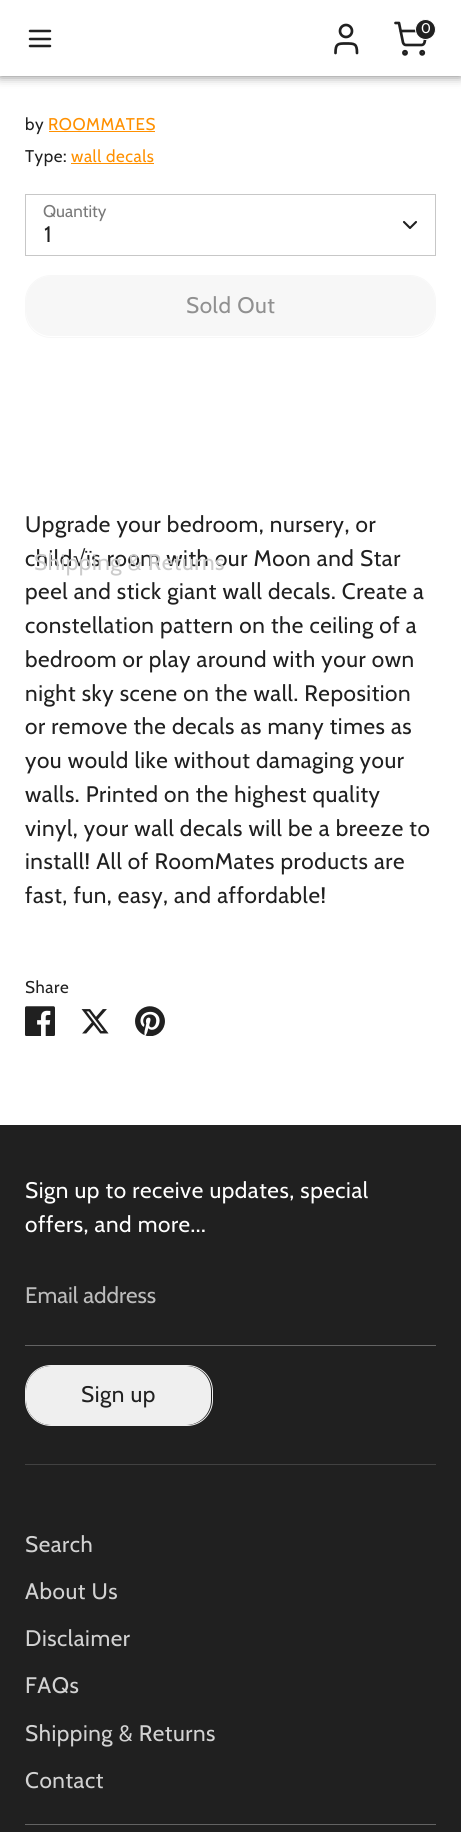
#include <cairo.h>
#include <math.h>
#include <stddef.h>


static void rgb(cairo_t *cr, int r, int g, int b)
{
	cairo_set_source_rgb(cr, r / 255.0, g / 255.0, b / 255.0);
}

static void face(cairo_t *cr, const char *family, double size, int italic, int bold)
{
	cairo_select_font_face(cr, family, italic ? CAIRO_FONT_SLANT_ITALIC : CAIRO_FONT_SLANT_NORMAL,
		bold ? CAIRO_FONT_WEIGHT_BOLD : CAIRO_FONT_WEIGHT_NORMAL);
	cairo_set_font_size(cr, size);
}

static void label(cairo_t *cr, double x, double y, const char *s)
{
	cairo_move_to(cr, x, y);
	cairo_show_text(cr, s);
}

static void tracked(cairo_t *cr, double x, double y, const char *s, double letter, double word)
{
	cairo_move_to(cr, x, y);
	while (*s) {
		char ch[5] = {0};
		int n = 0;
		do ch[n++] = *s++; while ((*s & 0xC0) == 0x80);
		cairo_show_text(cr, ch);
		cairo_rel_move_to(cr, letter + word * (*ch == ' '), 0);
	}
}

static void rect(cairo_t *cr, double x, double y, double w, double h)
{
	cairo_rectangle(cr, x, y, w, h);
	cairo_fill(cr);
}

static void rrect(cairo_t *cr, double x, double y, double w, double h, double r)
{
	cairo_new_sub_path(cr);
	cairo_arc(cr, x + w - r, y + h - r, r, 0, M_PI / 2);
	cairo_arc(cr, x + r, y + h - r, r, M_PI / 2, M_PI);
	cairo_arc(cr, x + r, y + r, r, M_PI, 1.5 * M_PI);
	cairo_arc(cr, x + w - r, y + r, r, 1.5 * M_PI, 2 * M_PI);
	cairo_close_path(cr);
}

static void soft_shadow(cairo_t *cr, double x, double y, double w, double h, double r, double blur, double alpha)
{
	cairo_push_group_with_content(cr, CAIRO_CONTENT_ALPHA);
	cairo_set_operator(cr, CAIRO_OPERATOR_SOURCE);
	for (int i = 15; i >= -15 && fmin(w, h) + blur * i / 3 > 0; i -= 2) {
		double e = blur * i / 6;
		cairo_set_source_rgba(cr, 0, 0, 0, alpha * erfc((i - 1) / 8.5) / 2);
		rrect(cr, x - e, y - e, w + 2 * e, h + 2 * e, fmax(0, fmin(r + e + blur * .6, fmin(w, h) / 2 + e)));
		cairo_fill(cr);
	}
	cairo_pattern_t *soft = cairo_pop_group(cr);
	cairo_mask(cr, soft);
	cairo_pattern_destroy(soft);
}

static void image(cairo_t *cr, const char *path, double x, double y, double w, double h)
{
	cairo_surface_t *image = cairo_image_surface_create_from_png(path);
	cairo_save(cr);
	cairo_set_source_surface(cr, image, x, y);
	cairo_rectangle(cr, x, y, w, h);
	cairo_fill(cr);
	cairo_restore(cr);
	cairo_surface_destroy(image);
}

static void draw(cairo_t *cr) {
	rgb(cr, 255, 255, 255);
	cairo_paint(cr);
	rgb(cr, 0, 0, 0);
	soft_shadow(cr, 0, -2, 461, 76, 0, 6, 0.75);
	rgb(cr, 255, 255, 255);
	rect(cr, 0, 0, 461, 76);
	cairo_new_path(cr);
	cairo_move_to(cr, 30, 39);
	cairo_line_to(cr, 50, 39);
	cairo_move_to(cr, 30, 31);
	cairo_line_to(cr, 50, 31);
	cairo_move_to(cr, 30, 46);
	cairo_line_to(cr, 50, 46);
	rgb(cr, 32, 32, 32);
	cairo_set_line_width(cr, 2.5);
	cairo_set_line_cap(cr, CAIRO_LINE_CAP_ROUND);
	cairo_set_line_join(cr, CAIRO_LINE_JOIN_ROUND);
	cairo_stroke(cr);
	cairo_new_path(cr);
	cairo_move_to(cr, 357, 53);
	cairo_curve_to(cr, 357, 43.5, 354.5, 43.5, 346, 43.5);
	cairo_curve_to(cr, 338, 43.5, 335.5, 43.5, 335.5, 53);
	cairo_set_line_width(cr, 2.7);
	cairo_stroke(cr);
	cairo_arc(cr, 346, 31, 6, 0, 2 * M_PI);
	cairo_set_line_cap(cr, CAIRO_LINE_CAP_BUTT);
	cairo_set_line_join(cr, CAIRO_LINE_JOIN_MITER);
	cairo_stroke(cr);
	cairo_arc(cr, 405, 52.8, 1.6, 0, 2 * M_PI);
	cairo_stroke(cr);
	cairo_arc(cr, 422.2, 52.8, 1.6, 0, 2 * M_PI);
	cairo_stroke(cr);
	cairo_new_path(cr);
	cairo_move_to(cr, 395.5, 23);
	cairo_line_to(cr, 399, 23);
	cairo_line_to(cr, 403, 42.5);
	cairo_curve_to(cr, 403.5, 44, 404.5, 45, 406, 45);
	cairo_line_to(cr, 421.5, 45);
	cairo_curve_to(cr, 423, 45, 424, 44, 424.5, 42.5);
	cairo_line_to(cr, 427, 31);
	cairo_line_to(cr, 400.5, 31);
	cairo_set_line_cap(cr, CAIRO_LINE_CAP_ROUND);
	cairo_set_line_join(cr, CAIRO_LINE_JOIN_ROUND);
	cairo_stroke(cr);
	cairo_arc(cr, 425.5, 29.5, 10, 0, 2 * M_PI);
	cairo_fill_preserve(cr);
	rgb(cr, 255, 255, 255);
	cairo_set_line_width(cr, 1);
	cairo_set_line_cap(cr, CAIRO_LINE_CAP_BUTT);
	cairo_set_line_join(cr, CAIRO_LINE_JOIN_MITER);
	cairo_stroke(cr);
	face(cr, "Cabin", 14, 0, 0);
	label(cr, 421, 33, "0");
	face(cr, "Cabin", 22.5, 0, 0);
	rgb(cr, 32, 32, 32);
	tracked(cr, 25, 566, "child", 0.55, 0);
	face(cr, "Liberation Sans", 22.5, 0, 0);
	tracked(cr, 73, 566, "√", 0.55, 0);
	face(cr, "Cabin", 22.5, 0, 0);
	tracked(cr, 86, 566, "ïs room with our Moon and Star", 0.55, 0);
	rgb(cr, 203, 203, 203);
	tracked(cr, 34, 570, "Shipping & Returns", 0.55, 0);
	face(cr, "Cabin", 17, 0, 0);
	rgb(cr, 32, 32, 32);
	tracked(cr, 25, 130, "by", 0.55, 0);
	rgb(cr, 255, 144, 0);
	tracked(cr, 48, 130, "ROOMMATES", 0.55, 0);
	rect(cr, 49, 131, 106, 1);
	rgb(cr, 32, 32, 32);
	tracked(cr, 25, 162, "Type:", 0.55, 0);
	rgb(cr, 255, 144, 0);
	tracked(cr, 71, 162, "wall decals", 0.55, 0);
	rect(cr, 71, 163, 83, 1);
	rgb(cr, 121, 121, 121);
	label(cr, 43, 217, "Quantity");
	cairo_rectangle(cr, 25.5, 194.5, 410, 61);
	rgb(cr, 199, 199, 199);
	cairo_stroke(cr);
	cairo_new_path(cr);
	cairo_move_to(cr, 404, 222);
	cairo_line_to(cr, 410, 228);
	cairo_line_to(cr, 416, 222);
	rgb(cr, 32, 32, 32);
	cairo_set_line_width(cr, 2.1);
	cairo_set_line_cap(cr, CAIRO_LINE_CAP_ROUND);
	cairo_set_line_join(cr, CAIRO_LINE_JOIN_ROUND);
	cairo_stroke(cr);
	face(cr, "Cabin", 22.5, 0, 0);
	tracked(cr, 44, 242, "1", 0.55, 0);
	rrect(cr, 25.5, 275.5, 410, 62, 25.5);
	rgb(cr, 247, 247, 247);
	cairo_set_line_width(cr, 1);
	cairo_set_line_cap(cr, CAIRO_LINE_CAP_BUTT);
	cairo_set_line_join(cr, CAIRO_LINE_JOIN_MITER);
	cairo_stroke(cr);
	rrect(cr, 26, 276, 409, 60, 25);
	cairo_fill(cr);
	rgb(cr, 144, 144, 144);
	tracked(cr, 186, 313, "Sold Out", 0.55, 0);
	rgb(cr, 32, 32, 32);
	tracked(cr, 25, 532, "Upgrade your bedroom, nursery, or", 0.55, 0);
	tracked(cr, 25, 599, "peel and stick giant wall decals. Create a", 0.55, 0);
	tracked(cr, 25, 633, "constellation pattern on the ceiling of a", 0.55, 0);
	tracked(cr, 25, 667, "bedroom or play around with your own", 0.55, 0);
	tracked(cr, 25, 701, "night sky scene on the wall. Reposition", 0.55, 0);
	tracked(cr, 25, 734, "or remove the decals as many times as", 0.55, 0);
	tracked(cr, 25, 768, "you would like without damaging your", 0.55, 0);
	tracked(cr, 25, 802, "walls. Printed on the highest quality", 0.55, 0);
	tracked(cr, 25, 836, "vinyl, your wall decals will be a breeze to", 0.55, 0);
	tracked(cr, 25, 869, "install! All of RoomMates products are", 0.55, 0);
	tracked(cr, 25, 903, "fast, fun, easy, and affordable!", 0.55, 0);
	face(cr, "Cabin", 17, 0, 0);
	tracked(cr, 25, 993, "Share", 0.55, 0);
	image(cr, "image0.png", 25, 1006, 30, 30);
	image(cr, "image1.png", 81, 1009, 28, 25);
	image(cr, "image2.png", 135, 1006, 30, 30);
	rect(cr, 0, 1125, 461, 707);
	face(cr, "Cabin", 22.5, 0, 0);
	rgb(cr, 255, 255, 255);
	tracked(cr, 25, 1198, "Sign up to receive updates, special", 0.55, 0);
	tracked(cr, 25, 1232, "offers, and more...", 0.55, 0);
	rgb(cr, 99, 99, 99);
	rect(cr, 25, 1345, 411, 1);
	rgb(cr, 188, 188, 188);
	label(cr, 25, 1303, "Email address");
	rrect(cr, 25.5, 1365.5, 187, 60, 25.5);
	rgb(cr, 239, 239, 239);
	cairo_stroke(cr);
	rrect(cr, 26, 1366, 185, 59, 25);
	cairo_fill(cr);
	rgb(cr, 32, 32, 32);
	tracked(cr, 81, 1402, "Sign up", 0.55, 0);
	rgb(cr, 65, 65, 65);
	rect(cr, 25, 1464, 411, 1);
	rgb(cr, 99, 99, 99);
	rect(cr, 25, 1824, 411, 1);
	rgb(cr, 210, 210, 210);
	tracked(cr, 25, 1552, "Search", 0.55, 0);
	tracked(cr, 25, 1599, "About Us", 0.55, 0);
	tracked(cr, 25, 1646, "Disclaimer", 0.55, 0);
	tracked(cr, 25, 1693, "FAQs", 0.55, 0);
	tracked(cr, 25, 1741, "Shipping & Returns", 0.55, 0);
	tracked(cr, 25, 1788, "Contact", 0.55, 0);
}

int main(void) {
	cairo_surface_t *surface = cairo_image_surface_create(CAIRO_FORMAT_RGB24, 461, 1832);
	cairo_t *cr = cairo_create(surface);
	cairo_font_options_t *options = cairo_font_options_create();
	cairo_font_options_set_hint_metrics(options, CAIRO_HINT_METRICS_OFF);
	cairo_font_options_set_hint_style(options, CAIRO_HINT_STYLE_NONE);
	cairo_set_font_options(cr, options);
	cairo_set_miter_limit(cr, 4);
	draw(cr);
	cairo_surface_write_to_png(surface, "render.png");
	cairo_font_options_destroy(options);
	cairo_destroy(cr);
	cairo_surface_destroy(surface);
	return 0;
}
